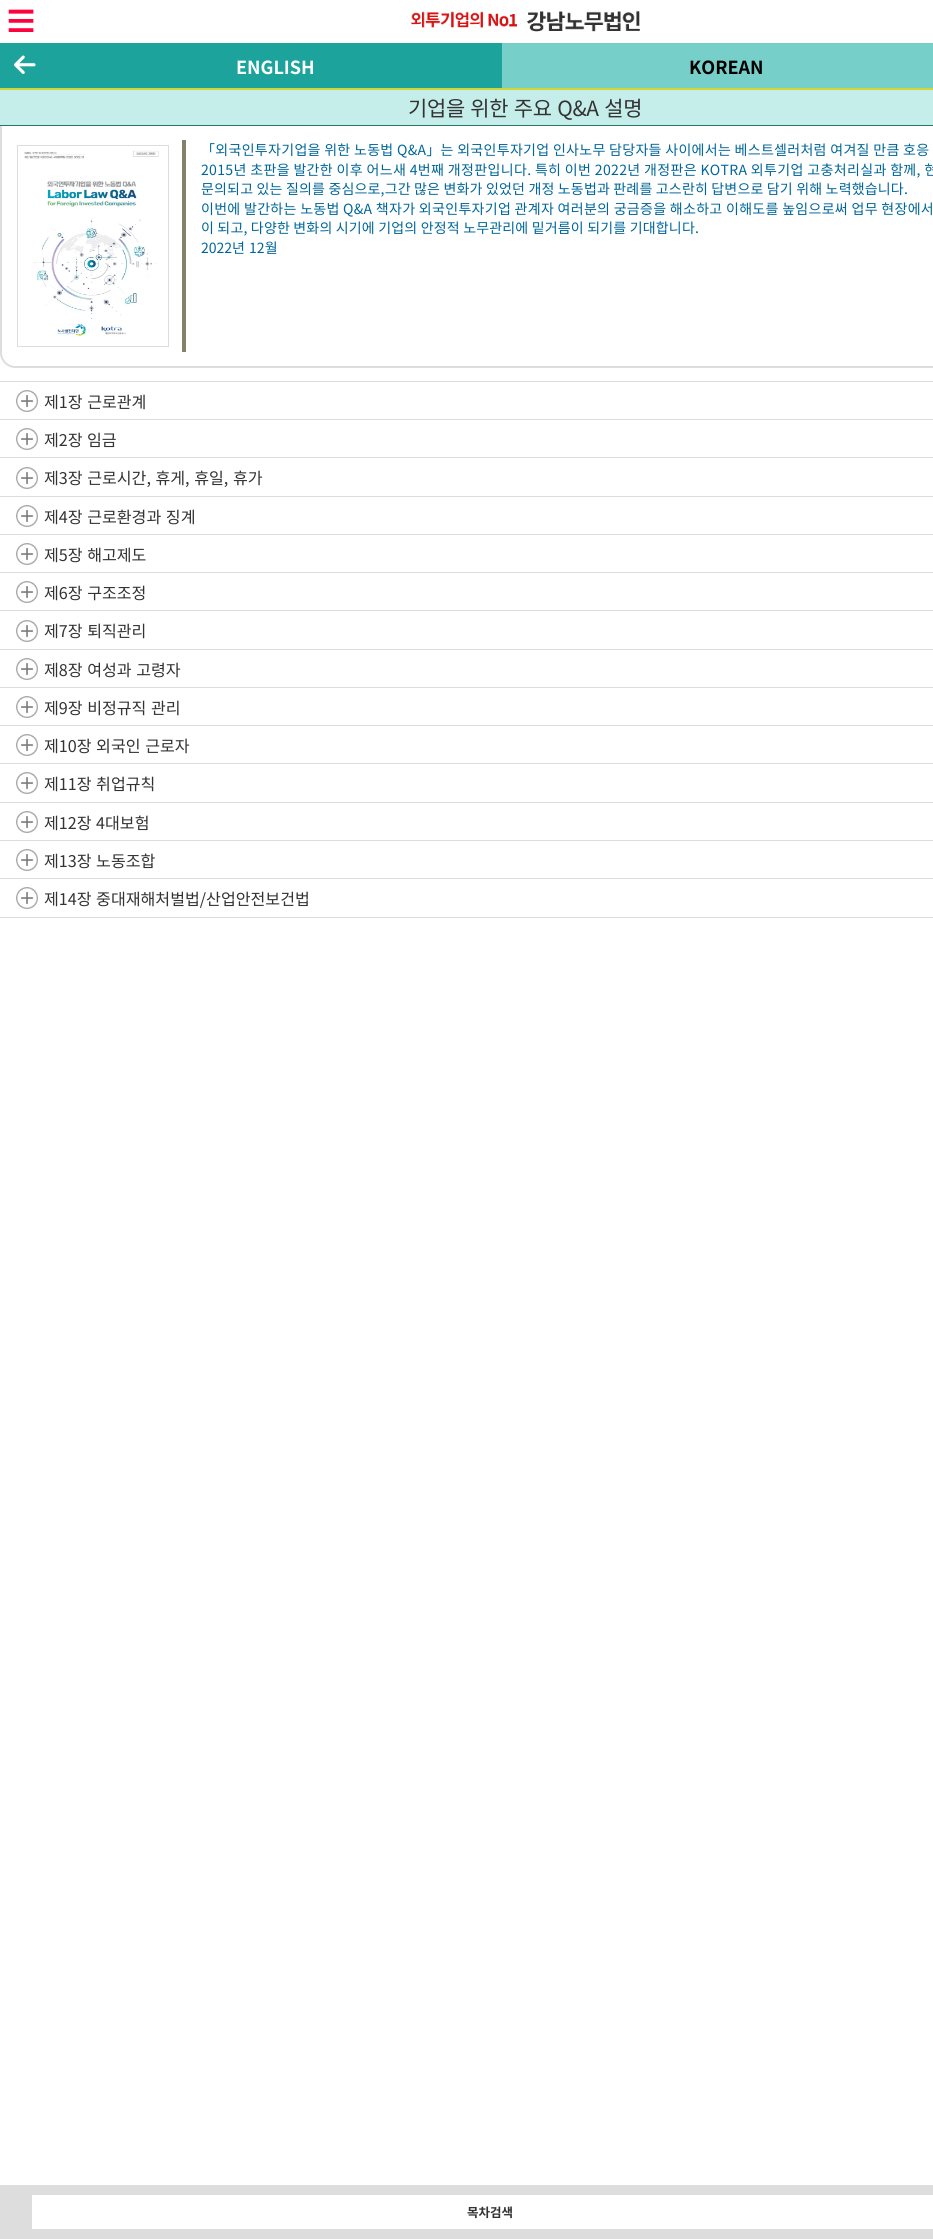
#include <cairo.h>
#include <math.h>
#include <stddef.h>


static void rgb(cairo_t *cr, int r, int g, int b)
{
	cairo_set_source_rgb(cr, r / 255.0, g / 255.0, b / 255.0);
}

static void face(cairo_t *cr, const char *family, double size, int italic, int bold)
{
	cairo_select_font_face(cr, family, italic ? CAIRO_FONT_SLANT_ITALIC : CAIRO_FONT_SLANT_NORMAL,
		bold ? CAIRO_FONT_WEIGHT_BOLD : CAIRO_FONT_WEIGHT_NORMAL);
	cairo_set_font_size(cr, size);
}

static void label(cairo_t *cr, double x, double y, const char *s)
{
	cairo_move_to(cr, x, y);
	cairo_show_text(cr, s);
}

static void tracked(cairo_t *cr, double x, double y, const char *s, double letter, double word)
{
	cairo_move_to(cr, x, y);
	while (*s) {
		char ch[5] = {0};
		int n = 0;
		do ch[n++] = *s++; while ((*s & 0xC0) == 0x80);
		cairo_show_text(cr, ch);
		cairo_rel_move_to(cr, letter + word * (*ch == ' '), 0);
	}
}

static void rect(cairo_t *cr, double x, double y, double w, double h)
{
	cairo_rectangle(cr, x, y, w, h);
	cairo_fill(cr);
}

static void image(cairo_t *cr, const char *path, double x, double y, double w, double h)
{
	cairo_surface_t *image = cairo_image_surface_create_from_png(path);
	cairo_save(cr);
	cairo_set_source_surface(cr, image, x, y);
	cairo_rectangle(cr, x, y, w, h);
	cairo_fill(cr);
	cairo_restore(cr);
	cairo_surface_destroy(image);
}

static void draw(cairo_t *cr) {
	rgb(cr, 255, 255, 255);
	cairo_paint(cr);
	image(cr, "image0.png", 8, 9, 26, 23);
	image(cr, "image1.png", 410, 11, 230, 21);
	rgb(cr, 27, 163, 156);
	rect(cr, 0, 43, 502, 45);
	image(cr, "image2.png", 14, 55, 22, 19);
	face(cr, "Noto Sans KR", 18, 0, 1);
	rgb(cr, 255, 255, 255);
	label(cr, 236, 74, "ENGLISH");
	rgb(cr, 119, 207, 202);
	rect(cr, 502, 43, 431, 45);
	rgb(cr, 0, 0, 0);
	label(cr, 689, 74, "KOREAN");
	rgb(cr, 197, 238, 235);
	rect(cr, 0, 90, 933, 35);
	rgb(cr, 208, 214, 56);
	rect(cr, 0, 88, 933, 2);
	rgb(cr, 42, 116, 112);
	rect(cr, 0, 125, 933, 1);
	face(cr, "Noto Sans KR", 20.9, 0, 0);
	rgb(cr, 51, 51, 51);
	tracked(cr, 408, 116, "기업을 위한 주요 Q&A 설명", -0.25, 1);
	rgb(cr, 221, 221, 221);
	cairo_set_fill_rule(cr, CAIRO_FILL_RULE_EVEN_ODD);
	cairo_new_path(cr);
	cairo_move_to(cr, 0, 126);
	cairo_line_to(cr, 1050, 126);
	cairo_line_to(cr, 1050, 353);
	cairo_curve_to(cr, 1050, 361, 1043, 368, 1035, 368);
	cairo_line_to(cr, 15, 368);
	cairo_curve_to(cr, 7, 368, 0, 361, 0, 353);
	cairo_close_path(cr);
	cairo_move_to(cr, 2, 126);
	cairo_line_to(cr, 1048, 126);
	cairo_line_to(cr, 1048, 353);
	cairo_curve_to(cr, 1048, 360, 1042, 366, 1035, 366);
	cairo_line_to(cr, 15, 366);
	cairo_curve_to(cr, 8, 366, 2, 360, 2, 353);
	cairo_close_path(cr);
	cairo_fill(cr);
	cairo_rectangle(cr, 17.5, 145.5, 151, 201);
	cairo_set_line_width(cr, 1);
	cairo_stroke(cr);
	image(cr, "image3.png", 24, 150, 135, 187);
	rgb(cr, 131, 129, 105);
	rect(cr, 182, 140, 4, 212);
	face(cr, "Noto Sans KR", 14, 0, 0);
	rgb(cr, 0, 102, 153);
	tracked(cr, 201, 155, "「외국인투자기업을 위한 노동법 Q&A」는 외국인투자기업 인사노무 담당자들 사이에서는 베스트셀러처럼 여겨질 만큼 호응", 0.3, 0);
	tracked(cr, 201, 175, "2015년 초판을 발간한 이후 어느새 4번째 개정판입니다. 특히 이번 2022년 개정판은 KOTRA 외투기업 고충처리실과 함께, 현", 0.35, 0);
	tracked(cr, 201, 194, "문의되고 있는 질의를 중심으로,그간 많은 변화가 있었던 개정 노동법과 판례를 고스란히 답변으로 담기 위해 노력했습니다.", 0.17, 0);
	tracked(cr, 201, 214, "이번에 발간하는 노동법 Q&A 책자가 외국인투자기업 관계자 여러분의 궁금증을 해소하고 이해도를 높임으로써 업무 현장에서", 0.3, 0);
	tracked(cr, 201, 233, "이 되고, 다양한 변화의 시기에 기업의 안정적 노무관리에 밑거름이 되기를 기대합니다.", 0.17, 0);
	tracked(cr, 201, 253, "2022년 12월", 0, 1);
	rgb(cr, 221, 221, 221);
	rect(cr, 0, 917, 933, 1);
	rect(cr, 0, 381, 933, 1);
	image(cr, "image4.png", 16, 390, 22, 22);
	face(cr, "Noto Sans KR", 16.1, 0, 0);
	rgb(cr, 51, 51, 51);
	tracked(cr, 44, 408, "제1장 근로관계", 0, 1);
	rgb(cr, 221, 221, 221);
	rect(cr, 0, 419, 933, 1);
	image(cr, "image4.png", 16, 428, 22, 22);
	rgb(cr, 51, 51, 51);
	label(cr, 44, 446, "제2장");
	label(cr, 87, 446, "임금");
	rgb(cr, 221, 221, 221);
	rect(cr, 0, 457, 933, 1);
	image(cr, "image4.png", 16, 467, 22, 22);
	rgb(cr, 51, 51, 51);
	tracked(cr, 44, 484, "제3장 근로시간, 휴게, 휴일, 휴가", 0, 1);
	rgb(cr, 221, 221, 221);
	rect(cr, 0, 496, 933, 1);
	image(cr, "image4.png", 16, 505, 22, 22);
	rgb(cr, 51, 51, 51);
	tracked(cr, 44, 523, "제4장 근로환경과 징계", 0, 1);
	rgb(cr, 221, 221, 221);
	rect(cr, 0, 534, 933, 1);
	image(cr, "image4.png", 16, 543, 22, 22);
	rgb(cr, 51, 51, 51);
	tracked(cr, 44, 561, "제5장 해고제도", 0, 1);
	rgb(cr, 221, 221, 221);
	rect(cr, 0, 572, 933, 1);
	image(cr, "image4.png", 16, 581, 22, 22);
	rgb(cr, 51, 51, 51);
	tracked(cr, 44, 599, "제6장 구조조정", 0, 1);
	rgb(cr, 221, 221, 221);
	rect(cr, 0, 610, 933, 1);
	image(cr, "image4.png", 16, 620, 22, 22);
	rgb(cr, 51, 51, 51);
	tracked(cr, 44, 637, "제7장 퇴직관리", 0, 1);
	rgb(cr, 221, 221, 221);
	rect(cr, 0, 649, 933, 1);
	image(cr, "image4.png", 16, 658, 22, 22);
	rgb(cr, 51, 51, 51);
	tracked(cr, 44, 676, "제8장 여성과 고령자", 0, 1);
	rgb(cr, 221, 221, 221);
	rect(cr, 0, 687, 933, 1);
	image(cr, "image4.png", 16, 696, 22, 22);
	rgb(cr, 51, 51, 51);
	tracked(cr, 44, 714, "제9장 비정규직 관리", 0, 1);
	rgb(cr, 221, 221, 221);
	rect(cr, 0, 725, 933, 1);
	image(cr, "image4.png", 16, 734, 22, 22);
	rgb(cr, 51, 51, 51);
	tracked(cr, 44, 752, "제10장 외국인 근로자", 0, 1);
	rgb(cr, 221, 221, 221);
	rect(cr, 0, 763, 933, 1);
	image(cr, "image4.png", 16, 772, 22, 22);
	rgb(cr, 51, 51, 51);
	tracked(cr, 44, 790, "제11장 취업규칙", 0, 1);
	rgb(cr, 221, 221, 221);
	rect(cr, 0, 802, 933, 1);
	image(cr, "image4.png", 16, 811, 22, 22);
	rgb(cr, 51, 51, 51);
	tracked(cr, 44, 829, "제12장 4대보험", 0, 1);
	rgb(cr, 221, 221, 221);
	rect(cr, 0, 840, 933, 1);
	image(cr, "image4.png", 16, 849, 22, 22);
	rgb(cr, 51, 51, 51);
	tracked(cr, 44, 867, "제13장 노동조합", 0, 1);
	rgb(cr, 221, 221, 221);
	rect(cr, 0, 878, 933, 1);
	image(cr, "image4.png", 16, 887, 22, 22);
	rgb(cr, 51, 51, 51);
	tracked(cr, 44, 905, "제14장 중대재해처벌법/산업안전보건법", 0, 1);
	rgb(cr, 221, 221, 221);
	rect(cr, 0, 2185, 933, 54);
	rgb(cr, 255, 255, 255);
	rect(cr, 32, 2195, 901, 34);
	face(cr, "Noto Sans KR", 12.5, 0, 1);
	rgb(cr, 51, 51, 51);
	label(cr, 467, 2217, "목차검색");
}

int main(void) {
	cairo_surface_t *surface = cairo_image_surface_create(CAIRO_FORMAT_RGB24, 933, 2239);
	cairo_t *cr = cairo_create(surface);
	cairo_font_options_t *options = cairo_font_options_create();
	cairo_font_options_set_hint_metrics(options, CAIRO_HINT_METRICS_OFF);
	cairo_font_options_set_hint_style(options, CAIRO_HINT_STYLE_NONE);
	cairo_set_font_options(cr, options);
	cairo_set_miter_limit(cr, 4);
	draw(cr);
	cairo_surface_write_to_png(surface, "render.png");
	cairo_font_options_destroy(options);
	cairo_destroy(cr);
	cairo_surface_destroy(surface);
	return 0;
}
